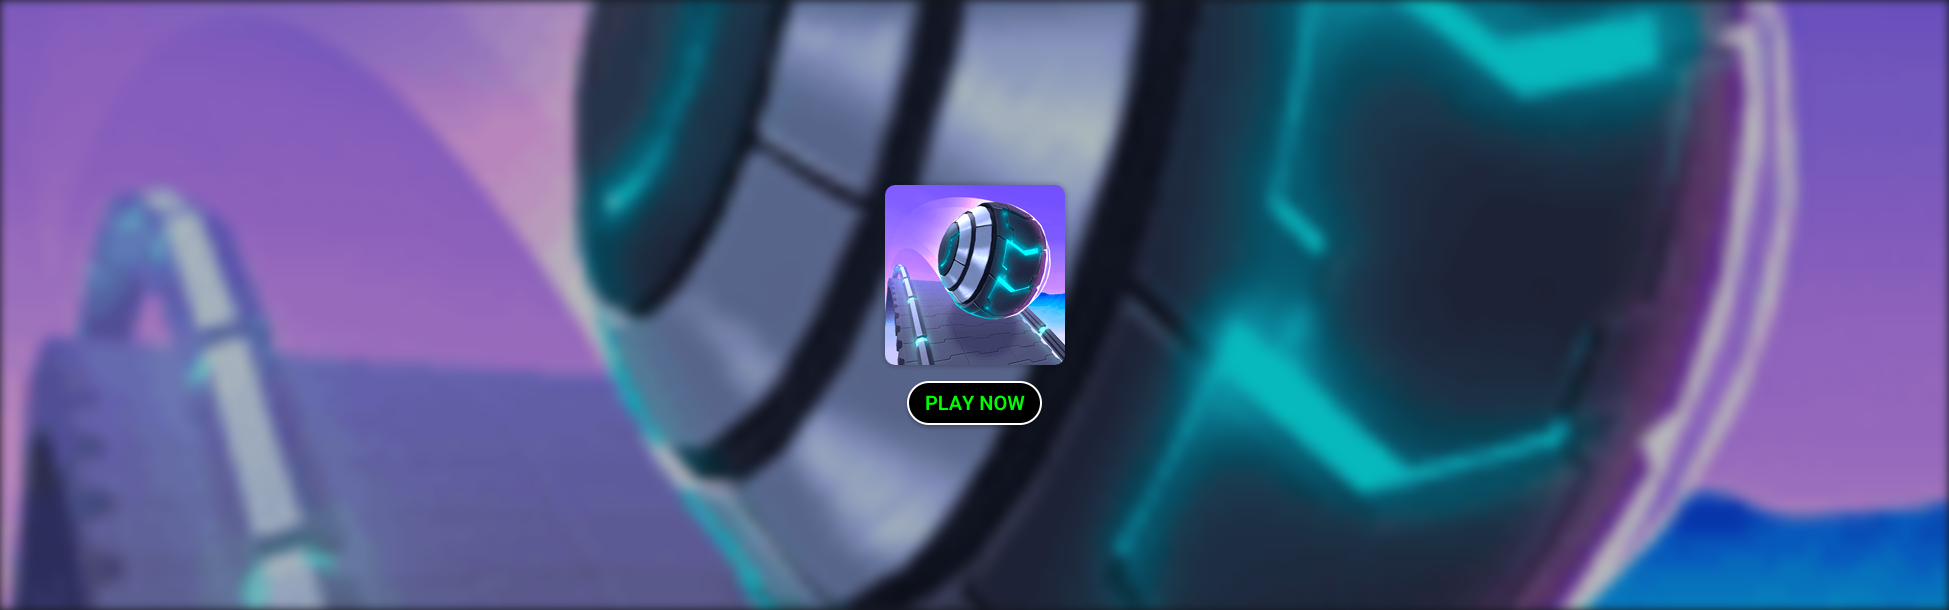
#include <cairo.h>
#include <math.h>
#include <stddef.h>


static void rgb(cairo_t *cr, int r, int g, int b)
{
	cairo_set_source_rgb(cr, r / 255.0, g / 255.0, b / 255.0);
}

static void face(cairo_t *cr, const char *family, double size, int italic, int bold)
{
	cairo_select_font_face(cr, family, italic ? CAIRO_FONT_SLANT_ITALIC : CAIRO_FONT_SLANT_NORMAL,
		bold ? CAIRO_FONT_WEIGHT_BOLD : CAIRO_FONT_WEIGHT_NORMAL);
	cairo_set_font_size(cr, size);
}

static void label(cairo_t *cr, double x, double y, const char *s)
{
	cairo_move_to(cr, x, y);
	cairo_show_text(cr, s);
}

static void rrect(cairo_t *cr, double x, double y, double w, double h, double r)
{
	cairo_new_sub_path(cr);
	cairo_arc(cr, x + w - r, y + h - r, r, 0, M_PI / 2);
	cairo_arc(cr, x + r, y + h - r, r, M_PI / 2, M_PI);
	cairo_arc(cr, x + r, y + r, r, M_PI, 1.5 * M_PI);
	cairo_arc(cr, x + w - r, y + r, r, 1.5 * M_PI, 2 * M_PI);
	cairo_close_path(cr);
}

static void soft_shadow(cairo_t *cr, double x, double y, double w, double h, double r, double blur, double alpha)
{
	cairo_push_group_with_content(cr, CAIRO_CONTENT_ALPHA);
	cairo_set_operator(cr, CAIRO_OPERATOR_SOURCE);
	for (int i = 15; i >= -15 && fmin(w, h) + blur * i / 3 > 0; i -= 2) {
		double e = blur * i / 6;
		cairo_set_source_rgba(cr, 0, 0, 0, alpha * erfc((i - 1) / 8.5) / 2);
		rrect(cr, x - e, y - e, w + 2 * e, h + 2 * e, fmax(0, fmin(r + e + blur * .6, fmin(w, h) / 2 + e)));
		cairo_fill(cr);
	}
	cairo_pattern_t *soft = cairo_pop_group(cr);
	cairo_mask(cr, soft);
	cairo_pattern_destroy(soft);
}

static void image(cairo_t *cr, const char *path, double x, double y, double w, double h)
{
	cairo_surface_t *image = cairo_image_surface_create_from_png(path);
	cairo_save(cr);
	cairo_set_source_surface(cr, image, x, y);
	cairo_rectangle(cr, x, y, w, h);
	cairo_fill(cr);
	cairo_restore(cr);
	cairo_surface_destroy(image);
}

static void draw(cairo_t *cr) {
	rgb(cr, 22, 24, 30);
	cairo_paint(cr);
	image(cr, "image0.png", 0, 0, 1949, 610);
	rgb(cr, 0, 0, 0);
	soft_shadow(cr, 883, 183, 184, 184, 12, 2.5, 0.2);
	image(cr, "image1.png", 885, 185, 180, 180);
	soft_shadow(cr, 907, 383, 135, 44, 22, 2, 0.3);
	rgb(cr, 0, 0, 0);
	rrect(cr, 908, 382, 133, 42, 21);
	cairo_fill_preserve(cr);
	rgb(cr, 255, 255, 255);
	cairo_stroke(cr);
	face(cr, "Roboto SemiBold", 20, 0, 0);
	rgb(cr, 1, 253, 4);
	label(cr, 925, 410, "PLAY NOW");
}

int main(void) {
	cairo_surface_t *surface = cairo_image_surface_create(CAIRO_FORMAT_RGB24, 1949, 610);
	cairo_t *cr = cairo_create(surface);
	cairo_font_options_t *options = cairo_font_options_create();
	cairo_font_options_set_hint_metrics(options, CAIRO_HINT_METRICS_OFF);
	cairo_font_options_set_hint_style(options, CAIRO_HINT_STYLE_NONE);
	cairo_set_font_options(cr, options);
	cairo_set_miter_limit(cr, 4);
	draw(cr);
	cairo_surface_write_to_png(surface, "render.png");
	cairo_font_options_destroy(options);
	cairo_destroy(cr);
	cairo_surface_destroy(surface);
	return 0;
}
